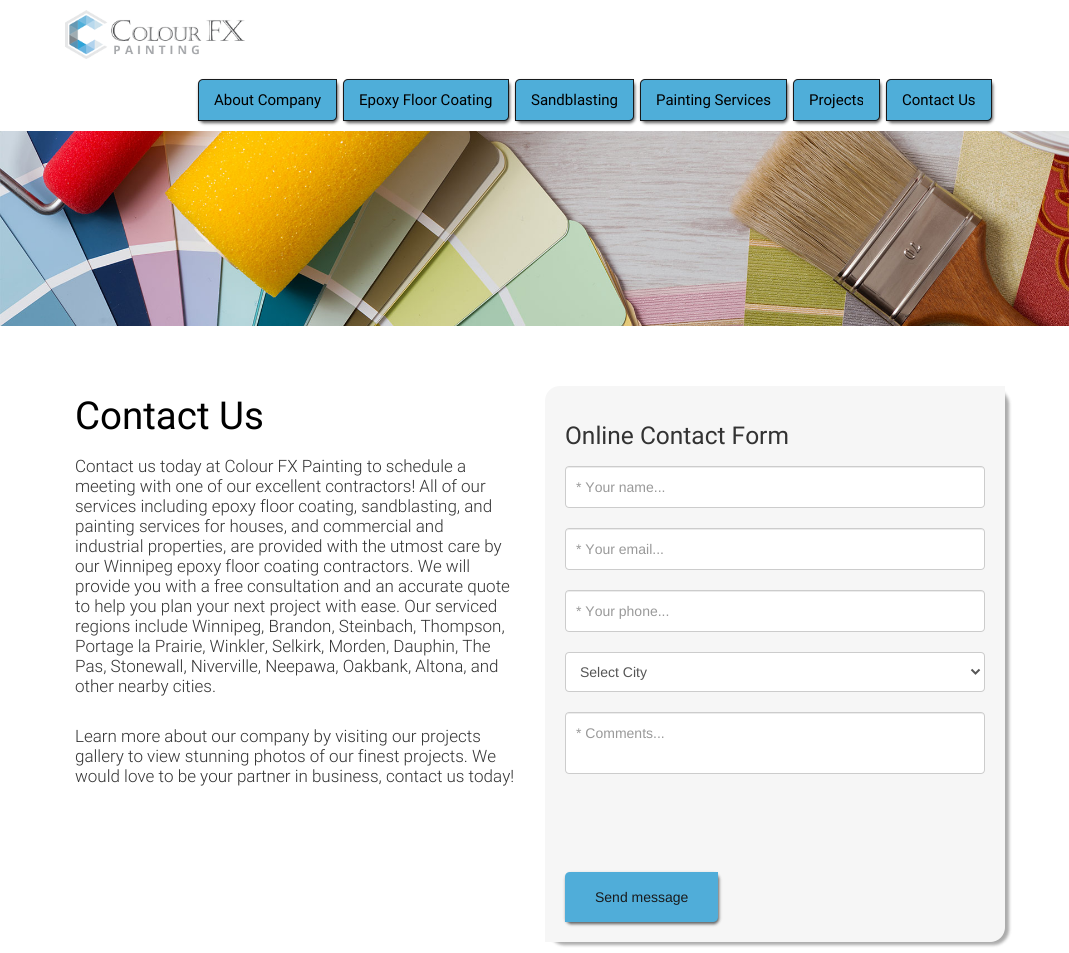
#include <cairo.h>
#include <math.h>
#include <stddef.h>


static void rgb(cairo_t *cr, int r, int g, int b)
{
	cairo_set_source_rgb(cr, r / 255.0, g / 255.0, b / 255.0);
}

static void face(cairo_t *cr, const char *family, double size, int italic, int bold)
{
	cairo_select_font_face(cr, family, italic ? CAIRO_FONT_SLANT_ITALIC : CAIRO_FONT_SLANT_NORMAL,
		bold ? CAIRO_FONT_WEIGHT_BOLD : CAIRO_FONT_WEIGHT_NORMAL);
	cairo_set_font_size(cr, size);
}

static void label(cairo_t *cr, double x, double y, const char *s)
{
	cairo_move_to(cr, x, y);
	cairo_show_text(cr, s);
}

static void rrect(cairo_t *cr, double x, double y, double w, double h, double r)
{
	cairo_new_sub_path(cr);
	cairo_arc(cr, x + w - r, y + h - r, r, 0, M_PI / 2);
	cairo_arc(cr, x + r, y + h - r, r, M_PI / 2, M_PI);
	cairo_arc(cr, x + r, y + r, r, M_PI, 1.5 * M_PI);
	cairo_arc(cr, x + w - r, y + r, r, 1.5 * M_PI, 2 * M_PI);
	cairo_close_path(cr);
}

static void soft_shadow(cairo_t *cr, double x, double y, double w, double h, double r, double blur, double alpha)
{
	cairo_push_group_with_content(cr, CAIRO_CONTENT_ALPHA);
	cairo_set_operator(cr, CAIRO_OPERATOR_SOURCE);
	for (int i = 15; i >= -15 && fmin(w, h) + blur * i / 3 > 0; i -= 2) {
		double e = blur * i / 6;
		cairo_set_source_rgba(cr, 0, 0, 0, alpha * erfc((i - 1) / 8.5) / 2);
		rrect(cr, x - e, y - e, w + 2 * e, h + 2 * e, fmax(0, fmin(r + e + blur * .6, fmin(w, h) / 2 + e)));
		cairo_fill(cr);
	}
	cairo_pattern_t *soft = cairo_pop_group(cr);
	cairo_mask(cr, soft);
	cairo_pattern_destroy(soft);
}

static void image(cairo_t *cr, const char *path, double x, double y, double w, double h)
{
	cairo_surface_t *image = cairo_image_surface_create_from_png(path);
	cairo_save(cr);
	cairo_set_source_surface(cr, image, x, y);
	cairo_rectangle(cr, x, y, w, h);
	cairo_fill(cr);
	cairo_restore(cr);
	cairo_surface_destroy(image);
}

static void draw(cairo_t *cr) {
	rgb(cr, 255, 255, 255);
	cairo_paint(cr);
	image(cr, "image0.png", 65, 10, 180, 49);
	rgb(cr, 0, 0, 0);
	soft_shadow(cr, 199, 81, 139, 42, 5, 1.5, 0.62);
	rgb(cr, 79, 174, 217);
	cairo_new_path(cr);
	cairo_move_to(cr, 203, 79.5);
	cairo_line_to(cr, 336.5, 79.5);
	cairo_line_to(cr, 336.5, 116);
	cairo_curve_to(cr, 336.5, 118.5, 334.5, 120.5, 332, 120.5);
	cairo_line_to(cr, 198.5, 120.5);
	cairo_line_to(cr, 198.5, 84);
	cairo_curve_to(cr, 198.5, 81.5, 200.5, 79.5, 203, 79.5);
	cairo_close_path(cr);
	cairo_fill_preserve(cr);
	rgb(cr, 24, 26, 28);
	cairo_set_line_width(cr, 1);
	cairo_stroke(cr);
	face(cr, "Roboto", 15, 0, 0);
	rgb(cr, 0, 0, 0);
	label(cr, 214, 105, "About Company");
	rgb(cr, 0, 0, 0);
	soft_shadow(cr, 344, 81, 166, 42, 5, 1.5, 0.62);
	rgb(cr, 79, 174, 217);
	cairo_new_path(cr);
	cairo_move_to(cr, 348, 79.5);
	cairo_line_to(cr, 508.5, 79.5);
	cairo_line_to(cr, 508.5, 116);
	cairo_curve_to(cr, 508.5, 118.5, 506.5, 120.5, 504, 120.5);
	cairo_line_to(cr, 343.5, 120.5);
	cairo_line_to(cr, 343.5, 84);
	cairo_curve_to(cr, 343.5, 81.5, 345.5, 79.5, 348, 79.5);
	cairo_close_path(cr);
	cairo_fill_preserve(cr);
	rgb(cr, 24, 26, 28);
	cairo_stroke(cr);
	rgb(cr, 0, 0, 0);
	label(cr, 359, 105, "Epoxy Floor Coating");
	rgb(cr, 0, 0, 0);
	soft_shadow(cr, 516, 81, 119, 42, 5, 1.5, 0.62);
	rgb(cr, 79, 174, 217);
	cairo_new_path(cr);
	cairo_move_to(cr, 520, 79.5);
	cairo_line_to(cr, 633.5, 79.5);
	cairo_line_to(cr, 633.5, 116);
	cairo_curve_to(cr, 633.5, 118.5, 631.5, 120.5, 629, 120.5);
	cairo_line_to(cr, 515.5, 120.5);
	cairo_line_to(cr, 515.5, 84);
	cairo_curve_to(cr, 515.5, 81.5, 517.5, 79.5, 520, 79.5);
	cairo_close_path(cr);
	cairo_fill_preserve(cr);
	rgb(cr, 24, 26, 28);
	cairo_stroke(cr);
	rgb(cr, 0, 0, 0);
	label(cr, 531, 105, "Sandblasting");
	rgb(cr, 0, 0, 0);
	soft_shadow(cr, 641, 81, 147, 42, 5, 1.5, 0.62);
	rgb(cr, 79, 174, 217);
	cairo_new_path(cr);
	cairo_move_to(cr, 645, 79.5);
	cairo_line_to(cr, 786.5, 79.5);
	cairo_line_to(cr, 786.5, 116);
	cairo_curve_to(cr, 786.5, 118.5, 784.5, 120.5, 782, 120.5);
	cairo_line_to(cr, 640.5, 120.5);
	cairo_line_to(cr, 640.5, 84);
	cairo_curve_to(cr, 640.5, 81.5, 642.5, 79.5, 645, 79.5);
	cairo_close_path(cr);
	cairo_fill_preserve(cr);
	rgb(cr, 24, 26, 28);
	cairo_stroke(cr);
	rgb(cr, 0, 0, 0);
	label(cr, 656, 105, "Painting Services");
	rgb(cr, 0, 0, 0);
	soft_shadow(cr, 794, 81, 87, 42, 5, 1.5, 0.62);
	rgb(cr, 79, 174, 217);
	cairo_new_path(cr);
	cairo_move_to(cr, 798, 79.5);
	cairo_line_to(cr, 879.5, 79.5);
	cairo_line_to(cr, 879.5, 116);
	cairo_curve_to(cr, 879.5, 118.5, 877.5, 120.5, 875, 120.5);
	cairo_line_to(cr, 793.5, 120.5);
	cairo_line_to(cr, 793.5, 84);
	cairo_curve_to(cr, 793.5, 81.5, 795.5, 79.5, 798, 79.5);
	cairo_close_path(cr);
	cairo_fill_preserve(cr);
	rgb(cr, 24, 26, 28);
	cairo_stroke(cr);
	rgb(cr, 0, 0, 0);
	label(cr, 809, 105, "Projects");
	rgb(cr, 0, 0, 0);
	soft_shadow(cr, 887, 81, 106, 42, 5, 1.5, 0.62);
	rgb(cr, 79, 174, 217);
	cairo_new_path(cr);
	cairo_move_to(cr, 891, 79.5);
	cairo_line_to(cr, 991.5, 79.5);
	cairo_line_to(cr, 991.5, 116);
	cairo_curve_to(cr, 991.5, 118.5, 989.5, 120.5, 987, 120.5);
	cairo_line_to(cr, 886.5, 120.5);
	cairo_line_to(cr, 886.5, 84);
	cairo_curve_to(cr, 886.5, 81.5, 888.5, 79.5, 891, 79.5);
	cairo_close_path(cr);
	cairo_fill_preserve(cr);
	rgb(cr, 24, 26, 28);
	cairo_stroke(cr);
	rgb(cr, 0, 0, 0);
	label(cr, 902, 105, "Contact Us");
	image(cr, "image1.png", 0, 131, 1069, 195);
	face(cr, "Roboto", 38.5, 0, 0);
	label(cr, 75, 429, "Contact Us");
	face(cr, "Roboto Light", 17, 0, 0);
	rgb(cr, 51, 51, 51);
	label(cr, 75, 472, "Contact us today at Colour FX Painting to schedule a");
	label(cr, 75, 492, "meeting with one of our excellent contractors! All of our");
	label(cr, 75, 512, "services including epoxy floor coating, sandblasting, and");
	label(cr, 75, 532, "painting services for houses, and commercial and");
	label(cr, 75, 552, "industrial properties, are provided with the utmost care by");
	label(cr, 75, 572, "our Winnipeg epoxy floor coating contractors. We will");
	label(cr, 75, 592, "provide you with a free consultation and an accurate quote");
	label(cr, 75, 612, "to help you plan your next project with ease. Our serviced");
	label(cr, 75, 632, "regions include Winnipeg, Brandon, Steinbach, Thompson,");
	label(cr, 75, 652, "Portage la Prairie, Winkler, Selkirk, Morden, Dauphin, The");
	label(cr, 75, 672, "Pas, Stonewall, Niverville, Neepawa, Oakbank, Altona, and");
	label(cr, 75, 692, "other nearby cities.");
	label(cr, 75, 742, "Learn more about our company by visiting our projects");
	label(cr, 75, 762, "gallery to view stunning photos of our finest projects. We");
	label(cr, 75, 782, "would love to be your partner in business, contact us today!");
	rgb(cr, 0, 0, 0);
	soft_shadow(cr, 549, 389, 460, 556, 15, 1.5, 0.33);
	rgb(cr, 246, 246, 246);
	cairo_new_path(cr);
	cairo_move_to(cr, 560, 386);
	cairo_line_to(cr, 1005, 386);
	cairo_line_to(cr, 1005, 927);
	cairo_curve_to(cr, 1005, 935.5, 998.5, 942, 990, 942);
	cairo_line_to(cr, 545, 942);
	cairo_line_to(cr, 545, 401);
	cairo_curve_to(cr, 545, 392.5, 551.5, 386, 560, 386);
	cairo_close_path(cr);
	cairo_fill(cr);
	face(cr, "Roboto", 24.5, 0, 0);
	rgb(cr, 51, 51, 51);
	label(cr, 565, 444, "Online Contact Form");
	rgb(cr, 255, 255, 255);
	rrect(cr, 565, 466, 420, 42, 4);
	cairo_fill(cr);
	rgb(cr, 236, 236, 236);
	cairo_new_path(cr);
	cairo_move_to(cr, 569, 468);
	cairo_line_to(cr, 981, 468);
	cairo_curve_to(cr, 983, 468, 984, 469, 984, 471);
	cairo_curve_to(cr, 984, 469, 983, 467, 981, 467);
	cairo_line_to(cr, 569, 467);
	cairo_curve_to(cr, 567, 467, 566, 469, 566, 471);
	cairo_curve_to(cr, 566, 469, 567, 468, 569, 468);
	cairo_close_path(cr);
	cairo_fill(cr);
	rrect(cr, 565.5, 466.5, 419, 41, 3.5);
	rgb(cr, 204, 204, 204);
	cairo_stroke(cr);
	face(cr, "Liberation Sans", 14, 0, 0);
	rgb(cr, 153, 153, 153);
	label(cr, 576, 492, "* Your name...");
	rgb(cr, 255, 255, 255);
	rrect(cr, 565, 528, 420, 42, 4);
	cairo_fill(cr);
	rgb(cr, 236, 236, 236);
	cairo_new_path(cr);
	cairo_move_to(cr, 569, 530);
	cairo_line_to(cr, 981, 530);
	cairo_curve_to(cr, 983, 530, 984, 531, 984, 533);
	cairo_curve_to(cr, 984, 531, 983, 529, 981, 529);
	cairo_line_to(cr, 569, 529);
	cairo_curve_to(cr, 567, 529, 566, 531, 566, 533);
	cairo_curve_to(cr, 566, 531, 567, 530, 569, 530);
	cairo_close_path(cr);
	cairo_fill(cr);
	rrect(cr, 565.5, 528.5, 419, 41, 3.5);
	rgb(cr, 204, 204, 204);
	cairo_stroke(cr);
	rgb(cr, 153, 153, 153);
	label(cr, 576, 554, "* Your email...");
	rgb(cr, 255, 255, 255);
	rrect(cr, 565, 590, 420, 42, 4);
	cairo_fill(cr);
	rgb(cr, 236, 236, 236);
	cairo_new_path(cr);
	cairo_move_to(cr, 569, 592);
	cairo_line_to(cr, 981, 592);
	cairo_curve_to(cr, 983, 592, 984, 593, 984, 595);
	cairo_curve_to(cr, 984, 593, 983, 591, 981, 591);
	cairo_line_to(cr, 569, 591);
	cairo_curve_to(cr, 567, 591, 566, 593, 566, 595);
	cairo_curve_to(cr, 566, 593, 567, 592, 569, 592);
	cairo_close_path(cr);
	cairo_fill(cr);
	rrect(cr, 565.5, 590.5, 419, 41, 3.5);
	rgb(cr, 204, 204, 204);
	cairo_stroke(cr);
	rgb(cr, 153, 153, 153);
	label(cr, 576, 616, "* Your phone...");
	rgb(cr, 255, 255, 255);
	rrect(cr, 565.5, 652.5, 419, 39, 3.5);
	cairo_fill_preserve(cr);
	rgb(cr, 204, 204, 204);
	cairo_stroke(cr);
	cairo_new_path(cr);
	cairo_move_to(cr, 971.5, 669.5);
	cairo_line_to(cr, 975.5, 673.5);
	cairo_line_to(cr, 979.5, 669.5);
	rgb(cr, 85, 85, 85);
	cairo_set_line_width(cr, 2);
	cairo_stroke(cr);
	label(cr, 580, 677, "Select City");
	rgb(cr, 255, 255, 255);
	rrect(cr, 565, 712, 420, 62, 4);
	cairo_fill(cr);
	rgb(cr, 236, 236, 236);
	cairo_new_path(cr);
	cairo_move_to(cr, 569, 714);
	cairo_line_to(cr, 981, 714);
	cairo_curve_to(cr, 983, 714, 984, 715, 984, 717);
	cairo_curve_to(cr, 984, 715, 983, 713, 981, 713);
	cairo_line_to(cr, 569, 713);
	cairo_curve_to(cr, 567, 713, 566, 715, 566, 717);
	cairo_curve_to(cr, 566, 715, 567, 714, 569, 714);
	cairo_close_path(cr);
	cairo_fill(cr);
	rrect(cr, 565.5, 712.5, 419, 61, 3.5);
	rgb(cr, 204, 204, 204);
	cairo_set_line_width(cr, 1);
	cairo_stroke(cr);
	rgb(cr, 153, 153, 153);
	label(cr, 576, 738, "* Comments...");
	rgb(cr, 0, 0, 0);
	soft_shadow(cr, 566, 874, 153, 50, 5, 1.5, 0.62);
	rgb(cr, 80, 173, 217);
	cairo_new_path(cr);
	cairo_move_to(cr, 570, 872);
	cairo_line_to(cr, 718, 872);
	cairo_line_to(cr, 718, 917);
	cairo_curve_to(cr, 718, 920, 716, 922, 713, 922);
	cairo_line_to(cr, 565, 922);
	cairo_line_to(cr, 565, 877);
	cairo_curve_to(cr, 565, 874, 567, 872, 570, 872);
	cairo_close_path(cr);
	cairo_fill(cr);
	rgb(cr, 24, 26, 28);
	label(cr, 595, 902, "Send message");
}

int main(void) {
	cairo_surface_t *surface = cairo_image_surface_create(CAIRO_FORMAT_RGB24, 1069, 953);
	cairo_t *cr = cairo_create(surface);
	cairo_font_options_t *options = cairo_font_options_create();
	cairo_font_options_set_hint_metrics(options, CAIRO_HINT_METRICS_OFF);
	cairo_font_options_set_hint_style(options, CAIRO_HINT_STYLE_NONE);
	cairo_set_font_options(cr, options);
	cairo_set_miter_limit(cr, 4);
	draw(cr);
	cairo_surface_write_to_png(surface, "render.png");
	cairo_font_options_destroy(options);
	cairo_destroy(cr);
	cairo_surface_destroy(surface);
	return 0;
}
